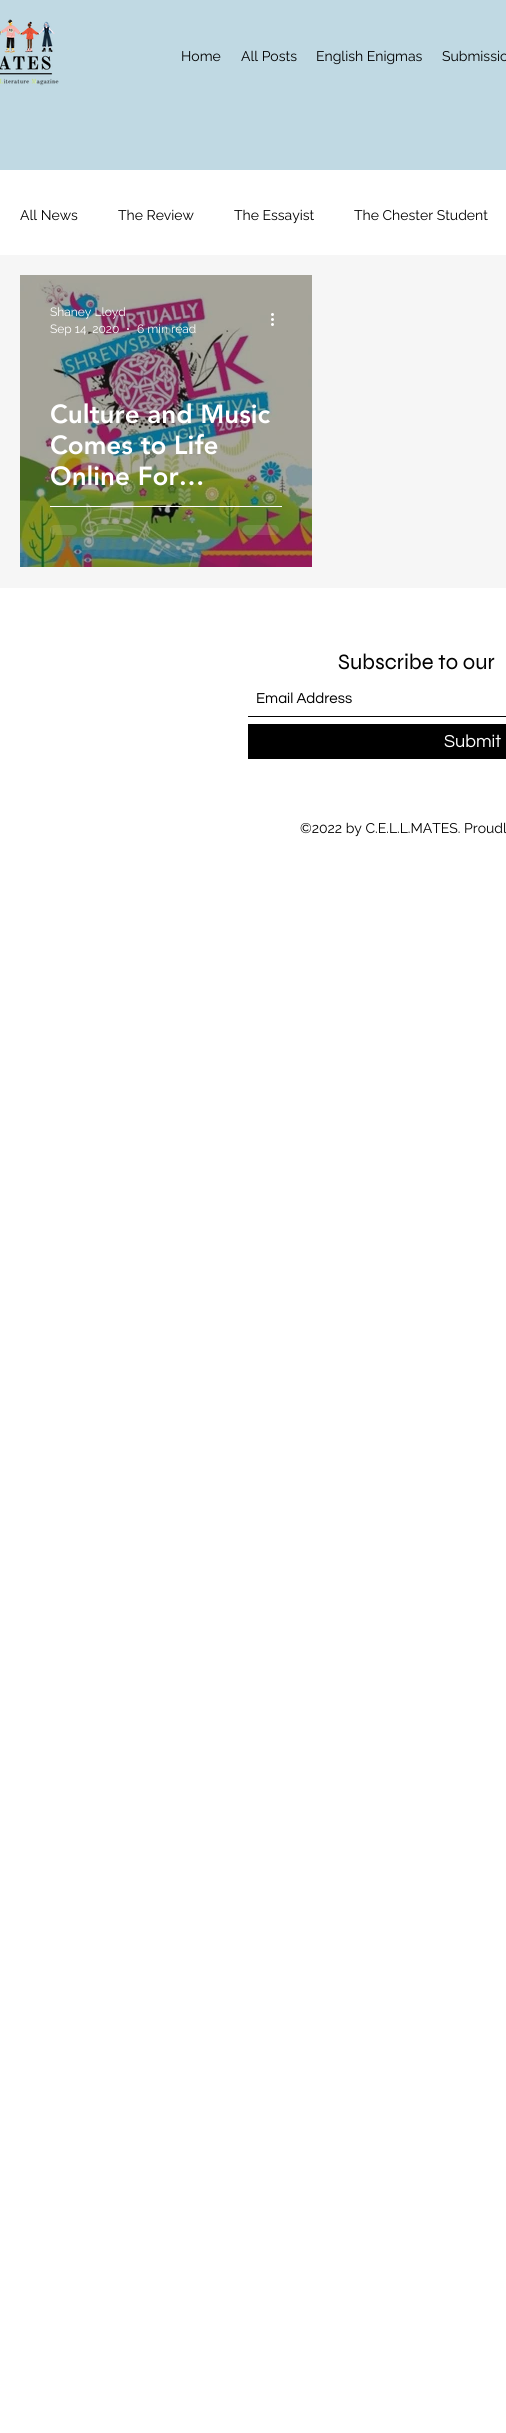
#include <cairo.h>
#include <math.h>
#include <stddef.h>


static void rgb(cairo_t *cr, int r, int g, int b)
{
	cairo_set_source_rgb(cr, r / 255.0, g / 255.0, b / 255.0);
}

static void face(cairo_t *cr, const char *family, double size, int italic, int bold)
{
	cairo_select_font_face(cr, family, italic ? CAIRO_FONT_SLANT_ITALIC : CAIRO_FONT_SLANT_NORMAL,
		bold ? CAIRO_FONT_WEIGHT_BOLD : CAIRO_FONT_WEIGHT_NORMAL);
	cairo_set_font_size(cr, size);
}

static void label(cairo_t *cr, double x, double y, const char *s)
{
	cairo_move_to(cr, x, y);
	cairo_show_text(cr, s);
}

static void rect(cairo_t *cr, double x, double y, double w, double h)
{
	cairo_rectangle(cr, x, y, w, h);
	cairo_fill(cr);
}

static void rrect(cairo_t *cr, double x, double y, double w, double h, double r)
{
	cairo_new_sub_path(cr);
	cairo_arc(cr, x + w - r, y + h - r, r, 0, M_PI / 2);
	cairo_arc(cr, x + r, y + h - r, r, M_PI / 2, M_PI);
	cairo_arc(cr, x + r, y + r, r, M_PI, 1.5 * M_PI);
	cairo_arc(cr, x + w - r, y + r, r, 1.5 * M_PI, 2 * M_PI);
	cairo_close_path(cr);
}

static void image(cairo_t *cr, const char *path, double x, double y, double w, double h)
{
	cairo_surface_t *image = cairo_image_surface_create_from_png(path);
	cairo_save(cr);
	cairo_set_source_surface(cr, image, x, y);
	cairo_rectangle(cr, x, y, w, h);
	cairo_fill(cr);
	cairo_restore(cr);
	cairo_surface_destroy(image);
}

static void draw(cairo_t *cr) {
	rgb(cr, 255, 255, 255);
	cairo_paint(cr);
	rgb(cr, 192, 217, 227);
	rect(cr, 0, 0, 506, 170);
	image(cr, "image0.png", 0, 19, 59, 67);
	face(cr, "Raleway", 14, 0, 0);
	rgb(cr, 0, 0, 0);
	label(cr, 181, 61, "Home");
	label(cr, 241, 61, "All Posts");
	label(cr, 316, 61, "English Enigmas");
	label(cr, 442, 61, "Submissio");
	rgb(cr, 246, 246, 246);
	rect(cr, 0, 255, 506, 333);
	rgb(cr, 0, 0, 0);
	label(cr, 20, 220, "All News");
	label(cr, 118, 220, "The Review");
	label(cr, 234, 220, "The Essayist");
	label(cr, 354, 220, "The Chester Student");
	image(cr, "image1.png", 20, 275, 292, 292);
	face(cr, "Raleway", 12, 0, 0);
	rgb(cr, 255, 255, 255);
	label(cr, 50, 316, "Shaney Lloyd");
	label(cr, 50, 333, "Sep 14, 2020");
	cairo_new_path(cr);
	cairo_arc(cr, 128, 329, 1, 0, 2 * M_PI);
	cairo_fill(cr);
	label(cr, 137, 333, "6 min read");
	image(cr, "image2.png", 271, 313, 3, 13);
	face(cr, "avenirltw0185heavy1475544 Black", 26, 0, 0);
	label(cr, 50, 423, "Culture and Music");
	label(cr, 50, 454, "Comes to Life");
	label(cr, 50, 485, "Online For…");
	rect(cr, 50, 506, 232, 1);
	cairo_set_source_rgba(cr, 1, 1, 1, 0.12);
	rrect(cr, 50, 525, 27, 10, 5);
	cairo_fill(cr);
	rrect(cr, 96, 525, 27, 10, 5);
	cairo_fill(cr);
	rrect(cr, 242, 525, 37, 10, 5);
	cairo_fill(cr);
	face(cr, "Syne", 22, 0, 0);
	rgb(cr, 0, 0, 0);
	label(cr, 338, 669, "Subscribe to our");
	rect(cr, 248, 716, 258, 1);
	face(cr, "Questrial", 15, 0, 0);
	label(cr, 256, 703, "Email Address");
	rect(cr, 248, 724, 258, 35);
	face(cr, "Questrial", 18, 0, 0);
	rgb(cr, 255, 255, 255);
	label(cr, 444, 747, "Submit");
	face(cr, "Raleway", 14, 0, 0);
	rgb(cr, 0, 0, 0);
	label(cr, 300, 833, "©2022 by C.E.L.L.MATES. Proudl");
}

int main(void) {
	cairo_surface_t *surface = cairo_image_surface_create(CAIRO_FORMAT_RGB24, 506, 2433);
	cairo_t *cr = cairo_create(surface);
	cairo_font_options_t *options = cairo_font_options_create();
	cairo_font_options_set_hint_metrics(options, CAIRO_HINT_METRICS_OFF);
	cairo_font_options_set_hint_style(options, CAIRO_HINT_STYLE_NONE);
	cairo_set_font_options(cr, options);
	cairo_set_miter_limit(cr, 4);
	draw(cr);
	cairo_surface_write_to_png(surface, "render.png");
	cairo_font_options_destroy(options);
	cairo_destroy(cr);
	cairo_surface_destroy(surface);
	return 0;
}
